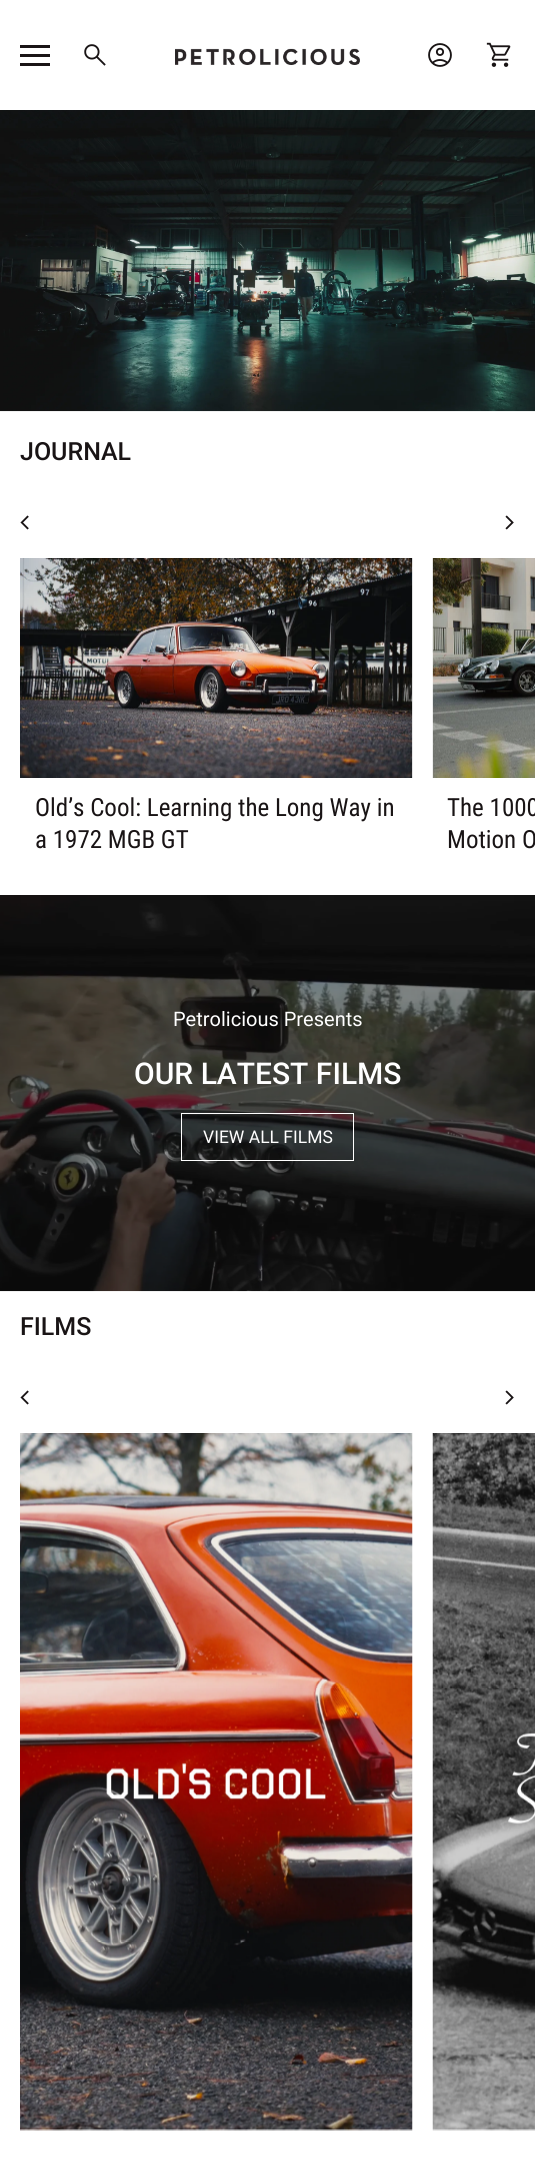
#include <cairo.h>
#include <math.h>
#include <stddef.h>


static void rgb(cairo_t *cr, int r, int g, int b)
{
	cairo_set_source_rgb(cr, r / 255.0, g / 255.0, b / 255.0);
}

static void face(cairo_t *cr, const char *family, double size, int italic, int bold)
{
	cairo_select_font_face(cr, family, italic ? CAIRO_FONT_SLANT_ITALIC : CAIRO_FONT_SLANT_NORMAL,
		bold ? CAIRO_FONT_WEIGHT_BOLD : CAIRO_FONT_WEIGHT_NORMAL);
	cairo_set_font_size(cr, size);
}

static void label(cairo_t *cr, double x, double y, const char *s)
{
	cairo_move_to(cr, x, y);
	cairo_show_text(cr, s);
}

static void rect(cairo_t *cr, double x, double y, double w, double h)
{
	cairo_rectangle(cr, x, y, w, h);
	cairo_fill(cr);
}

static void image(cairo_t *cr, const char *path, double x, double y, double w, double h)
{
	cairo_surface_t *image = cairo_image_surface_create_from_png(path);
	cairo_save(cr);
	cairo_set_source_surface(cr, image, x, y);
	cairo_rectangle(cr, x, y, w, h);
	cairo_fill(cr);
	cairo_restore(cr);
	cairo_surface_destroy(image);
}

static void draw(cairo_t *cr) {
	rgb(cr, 255, 255, 255);
	cairo_paint(cr);
	rgb(cr, 25, 20, 21);
	rect(cr, 20, 45, 30, 3);
	rect(cr, 20, 54, 30, 3);
	rect(cr, 20, 63, 30, 3);
	image(cr, "image0.png", 84, 44, 22, 22);
	image(cr, "image1.png", 175, 48, 185, 17);
	image(cr, "image2.png", 428, 43, 24, 24);
	image(cr, "image3.png", 486, 42, 25, 25);
	image(cr, "image4.png", 0, 110, 535, 302);
	face(cr, "Roboto Medium", 25, 0, 0);
	label(cr, 20, 460, "JOURNAL");
	image(cr, "image5.png", 20, 515, 9, 15);
	image(cr, "image6.png", 505, 515, 9, 15);
	image(cr, "image7.png", 20, 558, 393, 220);
	face(cr, "Roboto Condensed", 25, 0, 0);
	label(cr, 35, 816, "Old’s Cool: Learning the Long Way in");
	label(cr, 35, 848, "a 1972 MGB GT");
	image(cr, "image8.png", 432, 558, 103, 220);
	label(cr, 447, 816, "The 1000");
	label(cr, 447, 848, "Motion O");
	image(cr, "image9.png", 0, 895, 535, 397);
	face(cr, "Roboto", 20, 0, 0);
	rgb(cr, 255, 255, 255);
	label(cr, 173, 1026, "Petrolicious Presents");
	face(cr, "Roboto Medium", 30, 0, 0);
	label(cr, 134, 1084, "OUR LATEST FILMS");
	cairo_rectangle(cr, 181.5, 1113.5, 172, 47);
	cairo_set_line_width(cr, 1);
	cairo_stroke(cr);
	face(cr, "Roboto", 17.5, 0, 0);
	label(cr, 203, 1143, "VIEW ALL FILMS");
	face(cr, "Roboto Medium", 25, 0, 0);
	rgb(cr, 25, 20, 21);
	label(cr, 20, 1335, "FILMS");
	image(cr, "image5.png", 20, 1390, 9, 15);
	image(cr, "image6.png", 505, 1390, 9, 15);
	image(cr, "image10.png", 20, 1433, 393, 698);
	image(cr, "image11.png", 432, 1433, 103, 698);
}

int main(void) {
	cairo_surface_t *surface = cairo_image_surface_create(CAIRO_FORMAT_RGB24, 535, 2176);
	cairo_t *cr = cairo_create(surface);
	cairo_font_options_t *options = cairo_font_options_create();
	cairo_font_options_set_hint_metrics(options, CAIRO_HINT_METRICS_OFF);
	cairo_font_options_set_hint_style(options, CAIRO_HINT_STYLE_NONE);
	cairo_set_font_options(cr, options);
	cairo_set_miter_limit(cr, 4);
	draw(cr);
	cairo_surface_write_to_png(surface, "render.png");
	cairo_font_options_destroy(options);
	cairo_destroy(cr);
	cairo_surface_destroy(surface);
	return 0;
}
